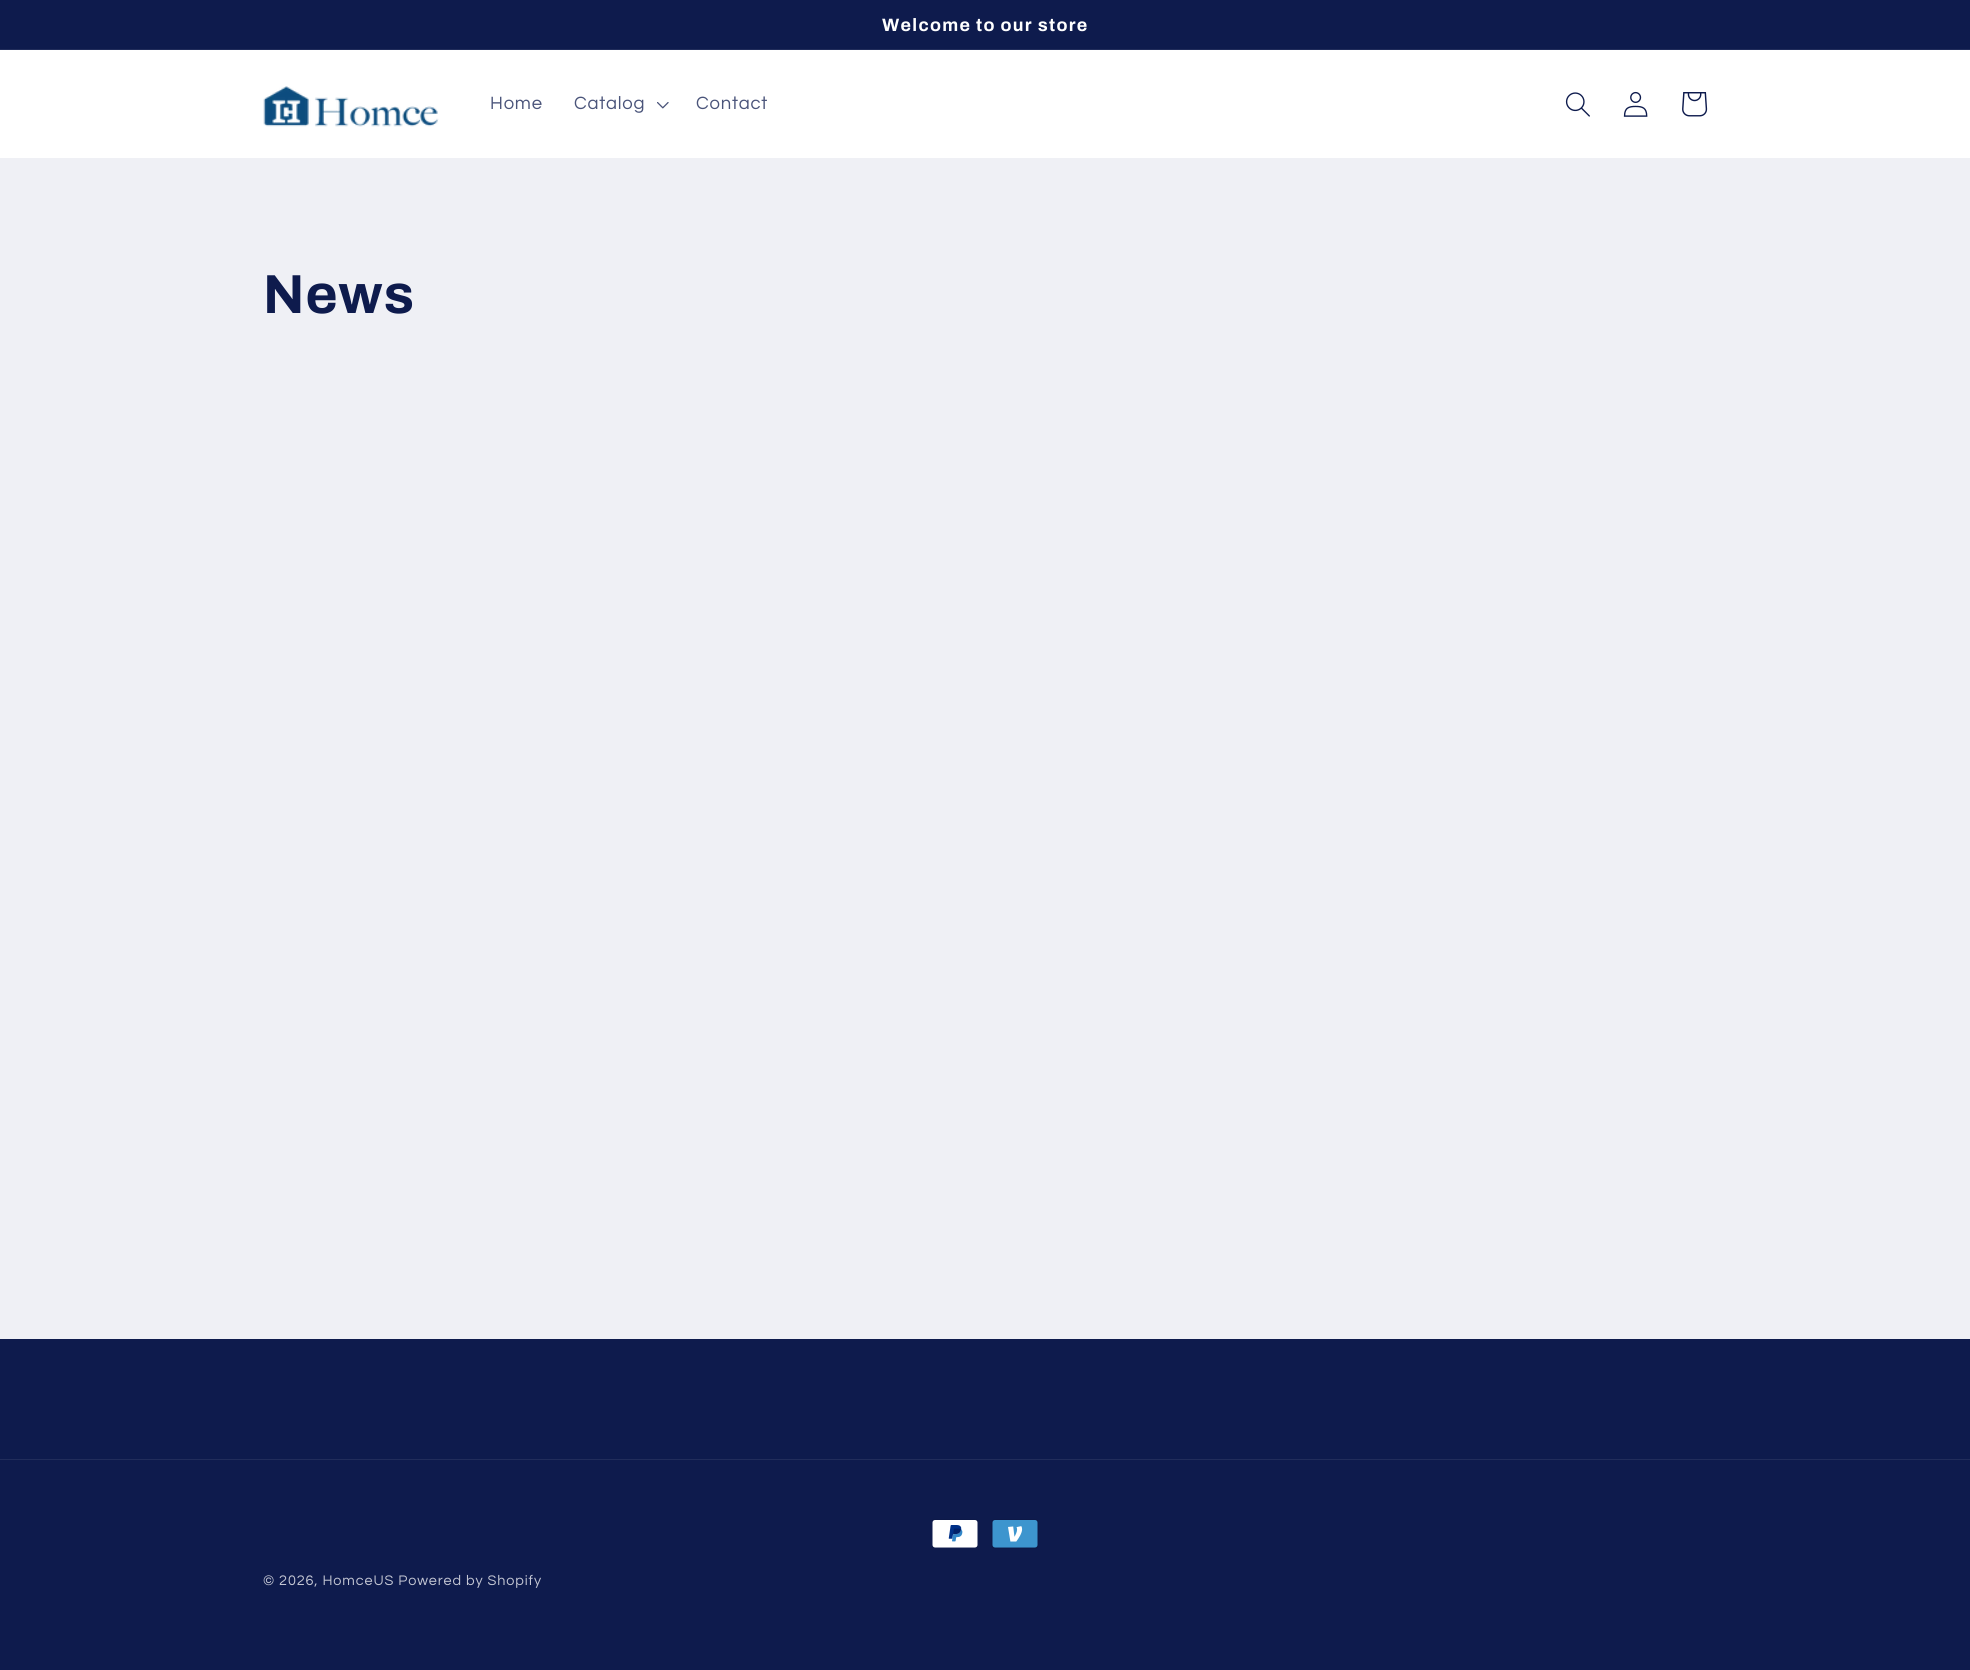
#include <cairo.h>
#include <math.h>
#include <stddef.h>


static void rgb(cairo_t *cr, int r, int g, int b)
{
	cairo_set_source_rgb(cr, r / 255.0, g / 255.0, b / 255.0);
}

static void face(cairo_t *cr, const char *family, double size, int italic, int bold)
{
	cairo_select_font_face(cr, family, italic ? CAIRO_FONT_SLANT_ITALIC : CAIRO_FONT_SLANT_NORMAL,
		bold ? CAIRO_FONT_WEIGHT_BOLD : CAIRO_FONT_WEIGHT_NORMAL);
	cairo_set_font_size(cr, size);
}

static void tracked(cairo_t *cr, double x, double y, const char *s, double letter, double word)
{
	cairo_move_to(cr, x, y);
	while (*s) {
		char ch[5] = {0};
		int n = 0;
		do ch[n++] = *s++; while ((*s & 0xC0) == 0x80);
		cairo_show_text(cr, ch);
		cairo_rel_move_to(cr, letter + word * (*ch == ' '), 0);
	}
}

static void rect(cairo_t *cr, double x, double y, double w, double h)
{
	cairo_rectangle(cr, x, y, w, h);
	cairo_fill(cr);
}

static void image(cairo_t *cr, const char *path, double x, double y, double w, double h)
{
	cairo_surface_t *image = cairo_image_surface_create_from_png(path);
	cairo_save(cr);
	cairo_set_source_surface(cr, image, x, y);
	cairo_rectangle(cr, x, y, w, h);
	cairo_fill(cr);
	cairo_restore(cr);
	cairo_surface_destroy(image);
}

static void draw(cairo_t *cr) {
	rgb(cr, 239, 240, 245);
	cairo_paint(cr);
	rgb(cr, 14, 27, 77);
	rect(cr, 0, 0, 1970, 49);
	rgb(cr, 33, 45, 91);
	rect(cr, 0, 49, 1970, 1);
	face(cr, "Archivo", 17.9, 0, 1);
	rgb(cr, 255, 255, 255);
	tracked(cr, 882, 31, "Welcome to our store", 1.3, 0);
	rect(cr, 0, 50, 1970, 108);
	image(cr, "image0.png", 263, 86, 176, 41);
	face(cr, "Questrial", 18.5, 0, 0);
	rgb(cr, 74, 84, 122);
	tracked(cr, 490, 109, "Home", 0.75, 0);
	tracked(cr, 574, 109, "Catalog", 0.75, 0);
	image(cr, "image1.png", 657, 102, 12, 7);
	tracked(cr, 696, 109, "Contact", 0.75, 0);
	image(cr, "image2.png", 1565, 92, 25, 25);
	image(cr, "image3.png", 1623, 91, 25, 26);
	image(cr, "image4.png", 1682, 92, 26, 25);
	face(cr, "Archivo", 55, 0, 1);
	rgb(cr, 14, 27, 77);
	tracked(cr, 263, 313, "News", 1, 0);
	rect(cr, 0, 1339, 1970, 331);
	rgb(cr, 33, 45, 91);
	rect(cr, 0, 1459, 1970, 1);
	image(cr, "image5.png", 932, 1519, 46, 29);
	image(cr, "image6.png", 991, 1519, 48, 30);
	face(cr, "Questrial", 14.4, 0, 0);
	rgb(cr, 195, 198, 211);
	tracked(cr, 263, 1585, "© 2026, HomceUS Powered by Shopify", 0.9, 0);
}

int main(void) {
	cairo_surface_t *surface = cairo_image_surface_create(CAIRO_FORMAT_RGB24, 1970, 1670);
	cairo_t *cr = cairo_create(surface);
	cairo_font_options_t *options = cairo_font_options_create();
	cairo_font_options_set_hint_metrics(options, CAIRO_HINT_METRICS_OFF);
	cairo_font_options_set_hint_style(options, CAIRO_HINT_STYLE_NONE);
	cairo_set_font_options(cr, options);
	cairo_set_miter_limit(cr, 4);
	draw(cr);
	cairo_surface_write_to_png(surface, "render.png");
	cairo_font_options_destroy(options);
	cairo_destroy(cr);
	cairo_surface_destroy(surface);
	return 0;
}
